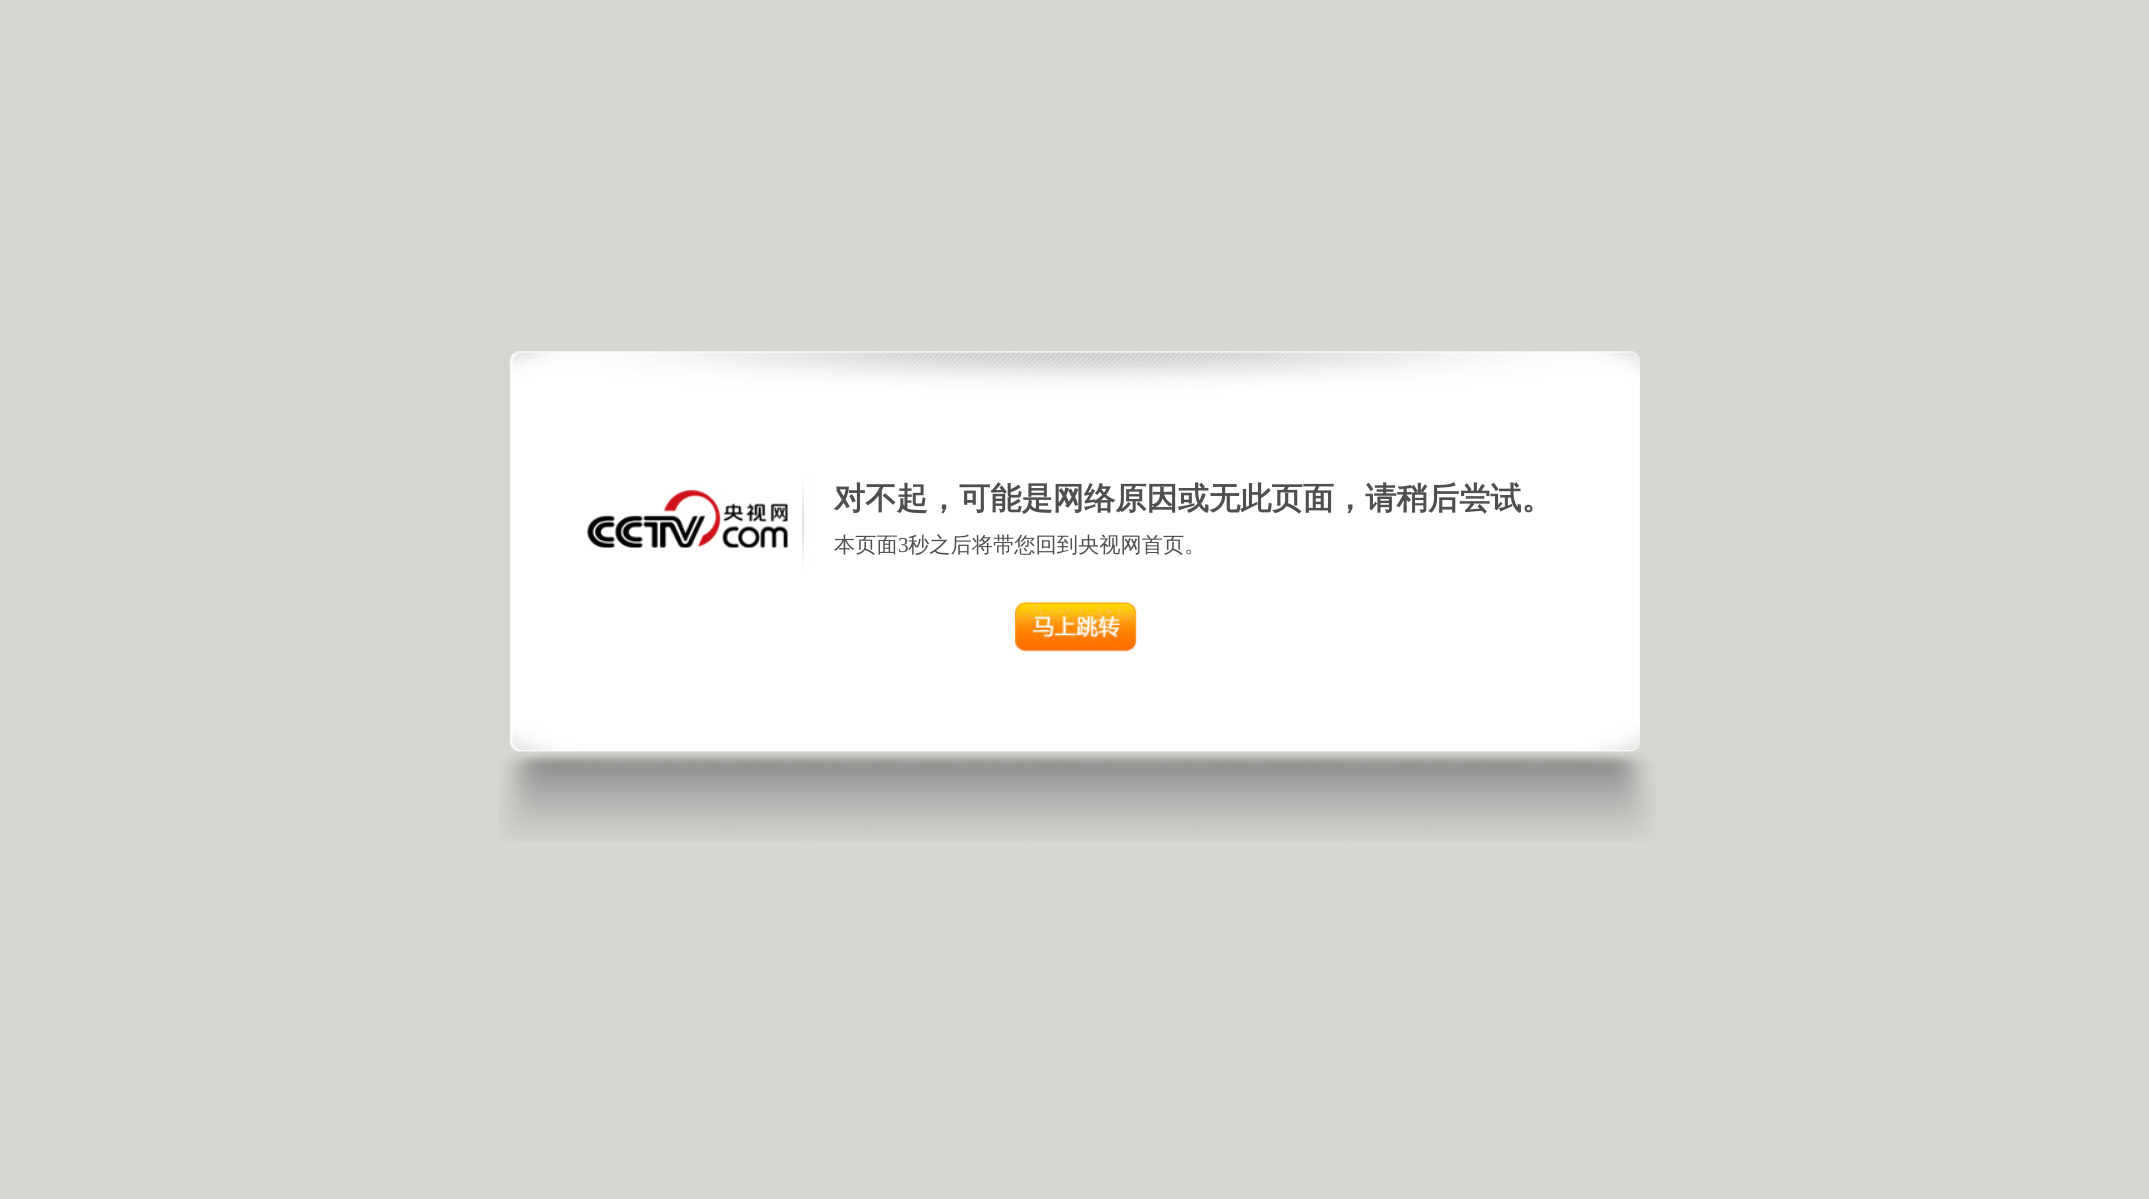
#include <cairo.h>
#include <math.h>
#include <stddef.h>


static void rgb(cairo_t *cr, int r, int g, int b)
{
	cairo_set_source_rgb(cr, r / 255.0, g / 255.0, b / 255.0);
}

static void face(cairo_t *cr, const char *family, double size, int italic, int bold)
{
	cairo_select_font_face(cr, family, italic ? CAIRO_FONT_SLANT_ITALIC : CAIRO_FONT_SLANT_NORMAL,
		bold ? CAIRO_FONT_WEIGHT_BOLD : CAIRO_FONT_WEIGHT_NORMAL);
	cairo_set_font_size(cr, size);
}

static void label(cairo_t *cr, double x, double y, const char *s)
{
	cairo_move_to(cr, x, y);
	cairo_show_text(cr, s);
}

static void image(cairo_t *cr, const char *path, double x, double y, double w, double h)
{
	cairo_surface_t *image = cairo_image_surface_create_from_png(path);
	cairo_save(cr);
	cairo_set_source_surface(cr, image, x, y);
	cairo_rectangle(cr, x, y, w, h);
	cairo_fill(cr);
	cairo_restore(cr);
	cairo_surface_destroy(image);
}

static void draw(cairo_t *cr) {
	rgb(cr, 214, 214, 210);
	cairo_paint(cr);
	image(cr, "image0.png", 498, 351, 1158, 491);
	face(cr, "WenQuanYi Zen Hei", 31.25, 0, 1);
	rgb(cr, 80, 78, 78);
	label(cr, 834, 509, "对不起，可能是网络原因或无此页面，请稍后尝试。");
	face(cr, "WenQuanYi Zen Hei Medium", 21.25, 0, 0);
	label(cr, 834, 552, "本页面");
	face(cr, "Liberation Serif", 21.25, 0, 0);
	label(cr, 898, 552, "3");
	face(cr, "WenQuanYi Zen Hei Medium", 21.25, 0, 0);
	label(cr, 908, 552, "秒之后将带您回到央视网首页。");
	image(cr, "image1.png", 1015, 602, 122, 50);
}

int main(void) {
	cairo_surface_t *surface = cairo_image_surface_create(CAIRO_FORMAT_RGB24, 2149, 1199);
	cairo_t *cr = cairo_create(surface);
	cairo_font_options_t *options = cairo_font_options_create();
	cairo_font_options_set_hint_metrics(options, CAIRO_HINT_METRICS_OFF);
	cairo_font_options_set_hint_style(options, CAIRO_HINT_STYLE_NONE);
	cairo_set_font_options(cr, options);
	cairo_set_miter_limit(cr, 4);
	draw(cr);
	cairo_surface_write_to_png(surface, "render.png");
	cairo_font_options_destroy(options);
	cairo_destroy(cr);
	cairo_surface_destroy(surface);
	return 0;
}
